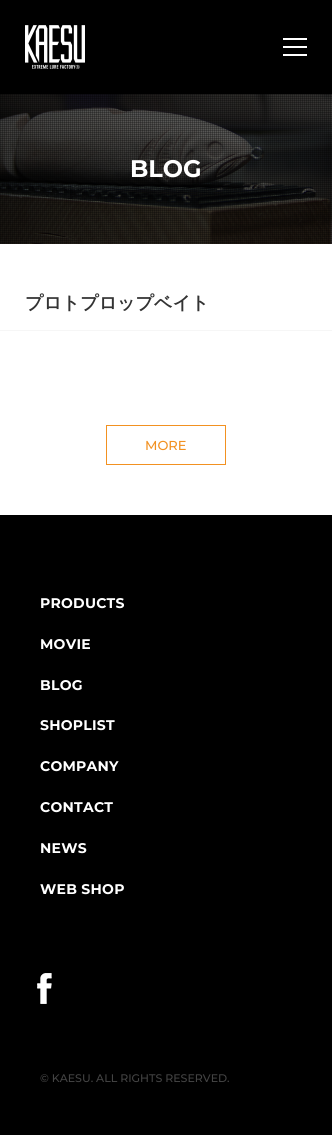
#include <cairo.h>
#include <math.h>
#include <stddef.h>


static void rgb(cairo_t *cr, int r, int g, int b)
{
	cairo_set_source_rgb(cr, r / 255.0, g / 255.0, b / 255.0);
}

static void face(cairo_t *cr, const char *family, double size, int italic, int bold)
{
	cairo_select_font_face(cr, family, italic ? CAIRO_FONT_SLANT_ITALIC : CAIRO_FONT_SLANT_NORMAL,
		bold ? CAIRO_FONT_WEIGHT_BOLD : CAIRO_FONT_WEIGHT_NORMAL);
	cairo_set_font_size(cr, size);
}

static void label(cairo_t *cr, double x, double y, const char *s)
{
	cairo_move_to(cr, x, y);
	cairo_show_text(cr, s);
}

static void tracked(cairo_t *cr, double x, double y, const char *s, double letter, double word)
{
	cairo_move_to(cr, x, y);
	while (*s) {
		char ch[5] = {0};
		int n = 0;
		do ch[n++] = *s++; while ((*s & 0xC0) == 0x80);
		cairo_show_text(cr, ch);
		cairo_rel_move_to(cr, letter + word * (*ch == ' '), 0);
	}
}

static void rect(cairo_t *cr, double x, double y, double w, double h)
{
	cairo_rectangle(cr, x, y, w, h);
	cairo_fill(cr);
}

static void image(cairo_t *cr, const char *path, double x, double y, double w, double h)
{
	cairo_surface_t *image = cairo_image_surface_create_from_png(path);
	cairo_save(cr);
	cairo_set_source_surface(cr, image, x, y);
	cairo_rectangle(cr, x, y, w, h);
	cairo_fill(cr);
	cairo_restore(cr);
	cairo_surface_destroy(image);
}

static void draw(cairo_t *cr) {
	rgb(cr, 255, 255, 255);
	cairo_paint(cr);
	rgb(cr, 0, 0, 0);
	rect(cr, 0, 0, 332, 94);
	image(cr, "image0.png", 25, 25, 60, 44);
	rgb(cr, 255, 255, 255);
	rect(cr, 283, 38, 24, 2);
	rect(cr, 283, 46, 24, 2);
	rect(cr, 283, 54, 24, 2);
	image(cr, "image1.png", 0, 94, 332, 150);
	image(cr, "image2.png", 0, 94, 332, 150);
	face(cr, "Montserrat", 24, 0, 1);
	label(cr, 130, 177, "BLOG");
	rgb(cr, 246, 246, 246);
	rect(cr, 0, 330, 332, 1);
	face(cr, "WenQuanYi Zen Hei", 18, 0, 1);
	rgb(cr, 51, 51, 51);
	label(cr, 25, 309, "プロトプロップベイト");
	rgb(cr, 242, 145, 33);
	rect(cr, 106, 425, 120, 1);
	rect(cr, 225, 425, 1, 40);
	rect(cr, 106, 464, 120, 1);
	rect(cr, 106, 425, 1, 40);
	face(cr, "Montserrat Medium", 13, 0, 0);
	label(cr, 145, 450, "MORE");
	rgb(cr, 0, 0, 0);
	rect(cr, 0, 515, 332, 620);
	face(cr, "Montserrat", 14, 0, 1);
	rgb(cr, 255, 255, 255);
	tracked(cr, 40, 608, "PRODUCTS", 0.25, 0);
	tracked(cr, 40, 649, "MOVIE", 0.25, 0);
	tracked(cr, 40, 690, "BLOG", 0.25, 0);
	tracked(cr, 40, 730, "SHOPLIST", 0.25, 0);
	tracked(cr, 40, 771, "COMPANY", 0.25, 0);
	tracked(cr, 40, 812, "CONTACT", 0.25, 0);
	tracked(cr, 40, 853, "NEWS", 0.25, 0);
	tracked(cr, 40, 894, "WEB SHOP", 0.25, 0);
	image(cr, "image3.png", 37, 973, 15, 31);
	face(cr, "Montserrat Medium", 11, 0, 0);
	rgb(cr, 68, 68, 68);
	label(cr, 40, 1082, "© KAESU. ALL RIGHTS RESERVED.");
}

int main(void) {
	cairo_surface_t *surface = cairo_image_surface_create(CAIRO_FORMAT_RGB24, 332, 1135);
	cairo_t *cr = cairo_create(surface);
	cairo_font_options_t *options = cairo_font_options_create();
	cairo_font_options_set_hint_metrics(options, CAIRO_HINT_METRICS_OFF);
	cairo_font_options_set_hint_style(options, CAIRO_HINT_STYLE_NONE);
	cairo_set_font_options(cr, options);
	cairo_set_miter_limit(cr, 4);
	draw(cr);
	cairo_surface_write_to_png(surface, "render.png");
	cairo_font_options_destroy(options);
	cairo_destroy(cr);
	cairo_surface_destroy(surface);
	return 0;
}
